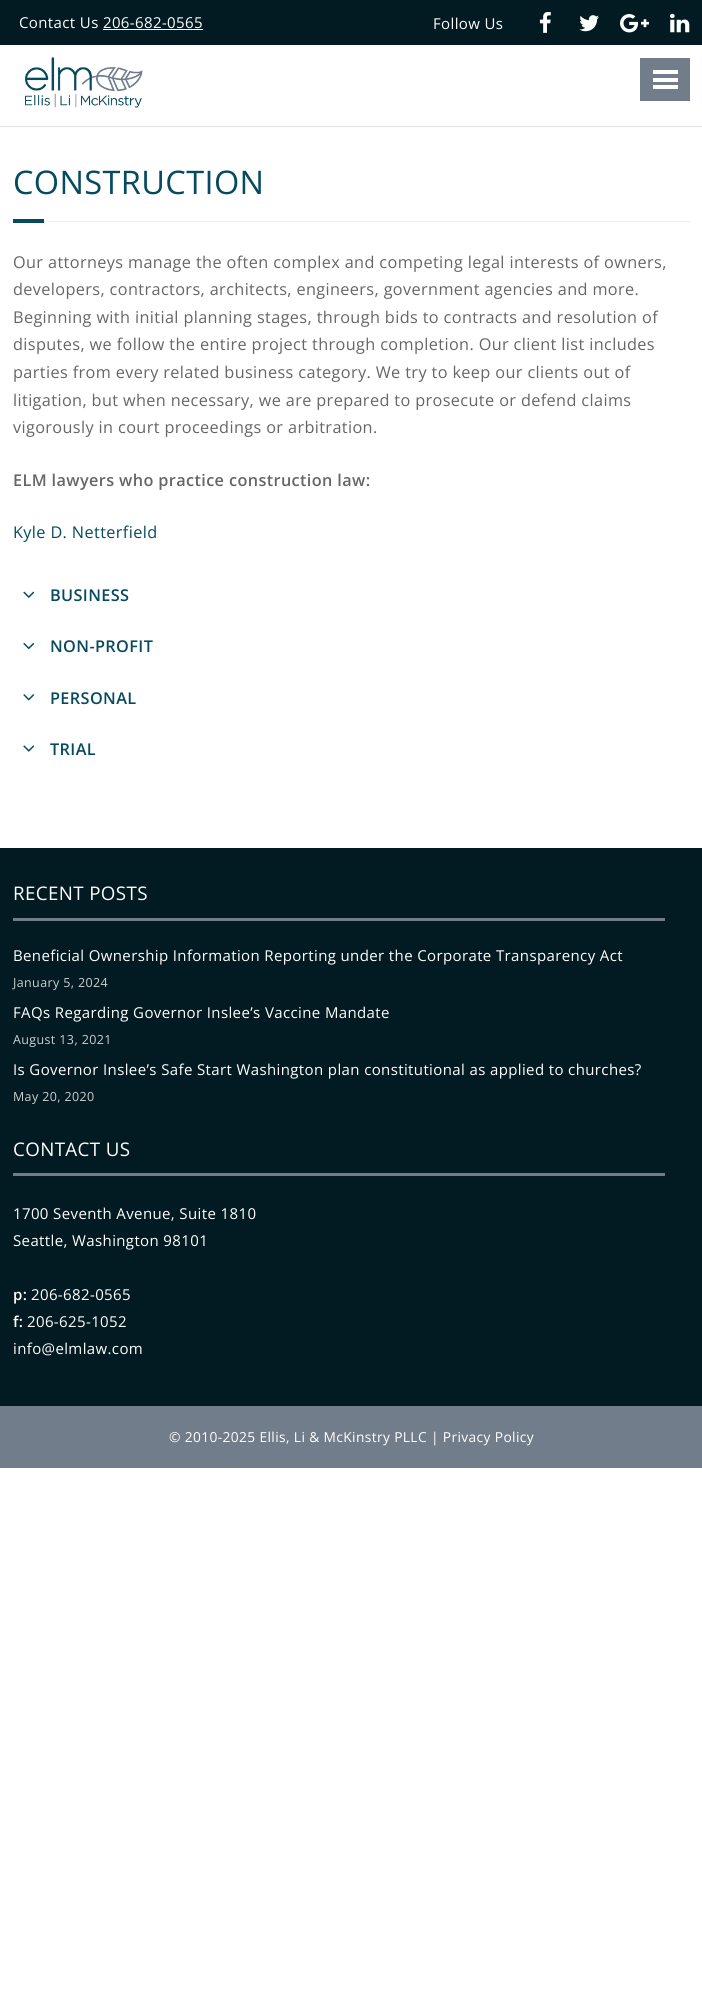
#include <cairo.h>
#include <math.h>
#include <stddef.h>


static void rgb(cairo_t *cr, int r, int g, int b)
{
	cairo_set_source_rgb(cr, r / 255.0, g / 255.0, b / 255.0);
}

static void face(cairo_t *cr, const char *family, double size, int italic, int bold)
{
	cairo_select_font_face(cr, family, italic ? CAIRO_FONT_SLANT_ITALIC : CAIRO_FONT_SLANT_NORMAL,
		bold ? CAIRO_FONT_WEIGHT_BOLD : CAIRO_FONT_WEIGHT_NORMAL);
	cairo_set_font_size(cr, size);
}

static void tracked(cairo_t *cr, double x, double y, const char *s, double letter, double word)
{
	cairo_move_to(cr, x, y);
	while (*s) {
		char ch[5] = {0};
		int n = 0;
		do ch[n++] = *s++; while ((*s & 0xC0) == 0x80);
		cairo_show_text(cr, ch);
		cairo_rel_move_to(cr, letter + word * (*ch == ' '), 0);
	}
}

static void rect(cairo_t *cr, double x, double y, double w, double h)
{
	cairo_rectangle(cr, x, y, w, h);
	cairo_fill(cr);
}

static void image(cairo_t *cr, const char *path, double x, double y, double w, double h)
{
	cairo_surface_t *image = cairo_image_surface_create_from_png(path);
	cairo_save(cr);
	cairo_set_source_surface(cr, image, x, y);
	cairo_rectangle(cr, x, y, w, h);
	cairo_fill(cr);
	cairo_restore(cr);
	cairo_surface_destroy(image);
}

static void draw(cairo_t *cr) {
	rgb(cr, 255, 255, 255);
	cairo_paint(cr);
	rgb(cr, 2, 26, 33);
	rect(cr, 0, 0, 702, 45);
	face(cr, "Open Sans", 15, 0, 0);
	rgb(cr, 255, 255, 255);
	tracked(cr, 19, 28, "Contact Us 206-682-0565", 0.38, 0);
	rect(cr, 103, 29, 100, 1);
	tracked(cr, 433, 29, "Follow Us", 0.38, 0);
	image(cr, "image0.png", 539, 12, 12, 21);
	image(cr, "image1.png", 579, 15, 20, 17);
	image(cr, "image2.png", 620, 14, 29, 19);
	image(cr, "image3.png", 670, 13, 20, 20);
	rgb(cr, 224, 224, 224);
	rect(cr, 0, 126, 702, 1);
	image(cr, "image4.png", 25, 57, 118, 51);
	rgb(cr, 114, 125, 140);
	rect(cr, 640, 58, 50, 43);
	rgb(cr, 255, 255, 255);
	rect(cr, 653, 70, 25, 4);
	rect(cr, 653, 78, 25, 4);
	rect(cr, 653, 85, 25, 4);
	face(cr, "Open Sans", 32.5, 0, 0);
	rgb(cr, 6, 74, 95);
	tracked(cr, 13, 194, "CONSTRUCTION", 0.38, 0);
	rect(cr, 13, 219, 31, 4);
	rgb(cr, 238, 238, 238);
	rect(cr, 44, 221, 646, 1);
	face(cr, "Open Sans", 16.25, 0, 0);
	rgb(cr, 102, 102, 102);
	tracked(cr, 13, 268, "Our attorneys manage the often complex and competing legal interests of owners,", 0.38, 0);
	tracked(cr, 13, 295, "developers, contractors, architects, engineers, government agencies and more.", 0.38, 0);
	tracked(cr, 13, 323, "Beginning with initial planning stages, through bids to contracts and resolution of", 0.38, 0);
	tracked(cr, 13, 350, "disputes, we follow the entire project through completion. Our client list includes", 0.38, 0);
	tracked(cr, 13, 378, "parties from every related business category. We try to keep our clients out of", 0.38, 0);
	tracked(cr, 13, 406, "litigation, but when necessary, we are prepared to prosecute or defend claims", 0.38, 0);
	tracked(cr, 13, 433, "vigorously in court proceedings or arbitration.", 0.38, 0);
	face(cr, "Open Sans SemiBold", 16.25, 0, 0);
	tracked(cr, 13, 486, "ELM lawyers who practice construction law:", 0.38, 0);
	face(cr, "Open Sans", 16.25, 0, 0);
	rgb(cr, 6, 74, 95);
	tracked(cr, 13, 538, "Kyle D. Netterfield", 0.38, 0);
	image(cr, "image5.png", 23, 591, 12, 7);
	face(cr, "Open Sans SemiBold", 16.25, 0, 0);
	tracked(cr, 50, 601, "BUSINESS", 0.38, 0);
	image(cr, "image6.png", 23, 642, 12, 8);
	tracked(cr, 50, 652, "NON-PROFIT", 0.38, 0);
	image(cr, "image7.png", 23, 694, 12, 7);
	tracked(cr, 50, 704, "PERSONAL", 0.38, 0);
	image(cr, "image8.png", 23, 745, 12, 7);
	tracked(cr, 50, 755, "TRIAL", 0.38, 0);
	rgb(cr, 2, 26, 33);
	rect(cr, 0, 848, 702, 558);
	rgb(cr, 114, 125, 140);
	rect(cr, 13, 918, 652, 3);
	face(cr, "Open Sans", 18.75, 0, 0);
	rgb(cr, 255, 255, 255);
	tracked(cr, 13, 900, "RECENT POSTS", 0.38, 0);
	face(cr, "Open Sans", 15, 0, 0);
	tracked(cr, 13, 961, "Beneficial Ownership Information Reporting under the Corporate Transparency Act", 0.38, 0);
	face(cr, "Open Sans", 12.5, 0, 0);
	rgb(cr, 204, 209, 211);
	tracked(cr, 13, 987, "January 5, 2024", 0.38, 0);
	face(cr, "Open Sans", 15, 0, 0);
	rgb(cr, 255, 255, 255);
	tracked(cr, 13, 1018, "FAQs Regarding Governor Inslee’s Vaccine Mandate", 0.38, 0);
	face(cr, "Open Sans", 12.5, 0, 0);
	rgb(cr, 204, 209, 211);
	tracked(cr, 13, 1044, "August 13, 2021", 0.38, 0);
	face(cr, "Open Sans", 15, 0, 0);
	rgb(cr, 255, 255, 255);
	tracked(cr, 13, 1075, "Is Governor Inslee’s Safe Start Washington plan constitutional as applied to churches?", 0.38, 0);
	face(cr, "Open Sans", 12.5, 0, 0);
	rgb(cr, 204, 209, 211);
	tracked(cr, 13, 1101, "May 20, 2020", 0.38, 0);
	rgb(cr, 114, 125, 140);
	rect(cr, 13, 1173, 652, 3);
	face(cr, "Open Sans", 18.75, 0, 0);
	rgb(cr, 255, 255, 255);
	tracked(cr, 13, 1156, "CONTACT US", 0.38, 0);
	face(cr, "Open Sans", 15, 0, 0);
	tracked(cr, 13, 1219, "1700 Seventh Avenue, Suite 1810", 0.38, 0);
	tracked(cr, 13, 1246, "Seattle, Washington 98101", 0.38, 0);
	face(cr, "Open Sans SemiBold", 15, 0, 0);
	tracked(cr, 13, 1300, "p:", 0.38, 0);
	face(cr, "Open Sans", 15, 0, 0);
	tracked(cr, 31, 1300, "206-682-0565", 0.38, 0);
	face(cr, "Open Sans SemiBold", 15, 0, 0);
	tracked(cr, 13, 1327, "f:", 0.38, 0);
	face(cr, "Open Sans", 15, 0, 0);
	tracked(cr, 27, 1327, "206-625-1052", 0.38, 0);
	tracked(cr, 13, 1354, "info@elmlaw.com", 0.38, 0);
	rgb(cr, 114, 125, 140);
	rect(cr, 0, 1406, 702, 62);
	face(cr, "Open Sans", 13.75, 0, 0);
	rgb(cr, 255, 255, 255);
	tracked(cr, 169, 1442, "© 2010-2025 Ellis, Li & McKinstry PLLC | Privacy Policy", 0.38, 0);
}

int main(void) {
	cairo_surface_t *surface = cairo_image_surface_create(CAIRO_FORMAT_RGB24, 702, 2002);
	cairo_t *cr = cairo_create(surface);
	cairo_font_options_t *options = cairo_font_options_create();
	cairo_font_options_set_hint_metrics(options, CAIRO_HINT_METRICS_OFF);
	cairo_font_options_set_hint_style(options, CAIRO_HINT_STYLE_NONE);
	cairo_set_font_options(cr, options);
	cairo_set_miter_limit(cr, 4);
	draw(cr);
	cairo_surface_write_to_png(surface, "render.png");
	cairo_font_options_destroy(options);
	cairo_destroy(cr);
	cairo_surface_destroy(surface);
	return 0;
}
